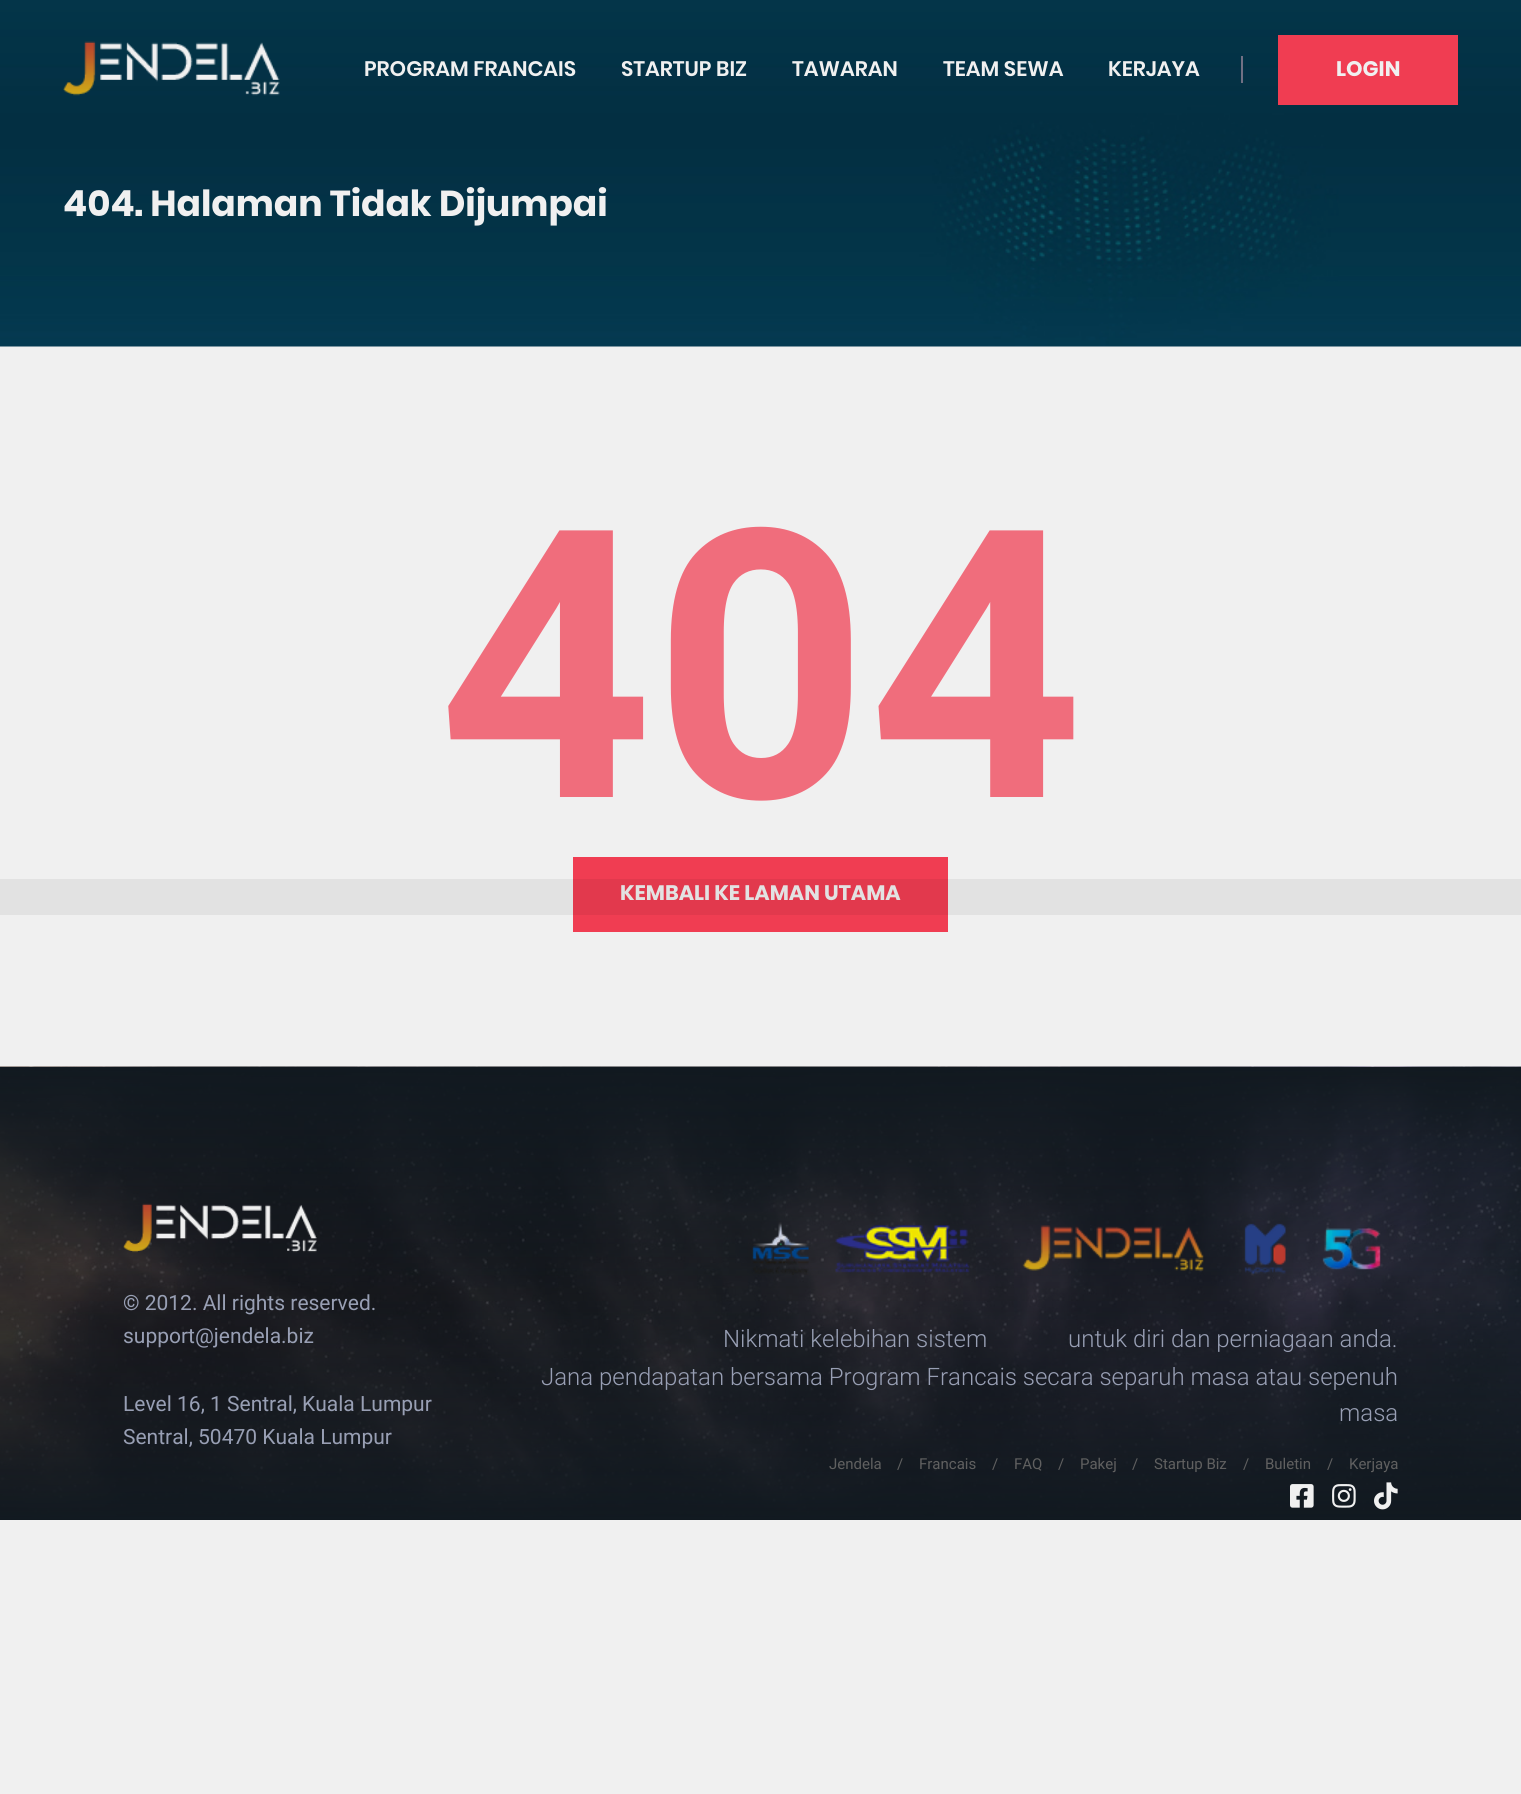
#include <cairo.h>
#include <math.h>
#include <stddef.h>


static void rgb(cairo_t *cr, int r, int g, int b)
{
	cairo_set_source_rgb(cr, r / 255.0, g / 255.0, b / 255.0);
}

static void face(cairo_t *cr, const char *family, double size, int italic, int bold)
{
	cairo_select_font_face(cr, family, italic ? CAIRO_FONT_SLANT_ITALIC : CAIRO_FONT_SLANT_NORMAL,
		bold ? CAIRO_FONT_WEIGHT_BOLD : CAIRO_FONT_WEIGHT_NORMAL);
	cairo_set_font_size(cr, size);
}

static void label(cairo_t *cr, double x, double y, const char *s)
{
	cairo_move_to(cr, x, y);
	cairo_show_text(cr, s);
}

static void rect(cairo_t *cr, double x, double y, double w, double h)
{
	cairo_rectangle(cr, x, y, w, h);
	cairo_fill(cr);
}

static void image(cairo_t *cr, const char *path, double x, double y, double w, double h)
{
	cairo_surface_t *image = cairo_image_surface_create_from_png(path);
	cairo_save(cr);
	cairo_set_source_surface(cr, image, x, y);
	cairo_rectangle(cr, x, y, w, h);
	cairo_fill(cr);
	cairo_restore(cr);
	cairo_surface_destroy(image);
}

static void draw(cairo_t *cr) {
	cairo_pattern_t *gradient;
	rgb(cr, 240, 240, 240);
	cairo_paint(cr);
	rgb(cr, 226, 226, 226);
	rect(cr, 0, 879, 1521, 36);
	image(cr, "image1.png", 0, 0, 1521, 347);
	image(cr, "image0.png", 63, 41, 217, 55);
	face(cr, "Poppins SemiBold", 21, 0, 0);
	rgb(cr, 240, 240, 240);
	label(cr, 364, 76, "PROGRAM FRANCAIS");
	label(cr, 621, 76, "STARTUP BIZ");
	label(cr, 792, 76, "TAWARAN");
	label(cr, 943, 76, "TEAM SEWA");
	label(cr, 1108, 76, "KERJAYA");
	rgb(cr, 113, 112, 132);
	rect(cr, 1241, 56, 2, 27);
	rgb(cr, 240, 61, 82);
	rect(cr, 1278, 35, 180, 70);
	face(cr, "Poppins", 21, 0, 1);
	rgb(cr, 240, 240, 240);
	label(cr, 1336, 76, "LOGIN");
	face(cr, "Poppins", 36, 0, 1);
	label(cr, 63, 216, "404. Halaman Tidak Dijumpai");
	face(cr, "Roboto", 375, 0, 1);
	rgb(cr, 240, 109, 124);
	label(cr, 438, 797, "404");
	rgb(cr, 240, 61, 82);
	rect(cr, 573, 915, 375, 17);
	rect(cr, 573, 857, 375, 22);
	rgb(cr, 226, 57, 77);
	rect(cr, 573, 879, 375, 36);
	face(cr, "Poppins", 21, 0, 1);
	rgb(cr, 226, 226, 226);
	label(cr, 620, 900, "KEMBALI KE LAMAN UTAMA");
	image(cr, "image2.png", 0, 1066, 1521, 451);
	gradient = cairo_pattern_create_linear(761, 1067, 761, 1520);
	cairo_pattern_add_color_stop_rgba(gradient, 0, 0.067, 0.098, 0.125, 1);
	cairo_pattern_add_color_stop_rgba(gradient, 0.5, 0.067, 0.098, 0.125, 0.5);
	cairo_pattern_add_color_stop_rgba(gradient, 1, 0.067, 0.098, 0.125, 1);
	cairo_set_source(cr, gradient);
	cairo_pattern_destroy(gradient);
	rect(cr, 0, 1067, 1521, 453);
	image(cr, "image3.png", 123, 1203, 194, 50);
	face(cr, "Roboto", 21, 0, 0);
	rgb(cr, 152, 159, 180);
	label(cr, 123, 1310, "© 2012. All rights reserved.");
	label(cr, 123, 1343, "support@jendela.biz");
	label(cr, 123, 1411, "Level 16, 1 Sentral, Kuala Lumpur");
	label(cr, 123, 1444, "Sentral, 50470 Kuala Lumpur");
	image(cr, "image4.png", 752, 1222, 629, 53);
	face(cr, "Roboto Light", 24, 0, 0);
	label(cr, 723, 1347, "Nikmati kelebihan sistem");
	label(cr, 1068, 1347, "untuk diri dan perniagaan anda.");
	label(cr, 541, 1385, "Jana pendapatan bersama Program Francais secara separuh masa atau sepenuh");
	label(cr, 1339, 1421, "masa");
	face(cr, "Roboto", 15, 0, 0);
	rgb(cr, 96, 96, 96);
	label(cr, 829, 1469, "Jendela");
	label(cr, 897, 1469, "/");
	label(cr, 919, 1469, "Francais");
	label(cr, 992, 1469, "/");
	label(cr, 1014, 1469, "FAQ");
	label(cr, 1058, 1469, "/");
	label(cr, 1080, 1469, "Pakej");
	label(cr, 1132, 1469, "/");
	label(cr, 1154, 1469, "Startup Biz");
	label(cr, 1243, 1469, "/");
	label(cr, 1265, 1469, "Buletin");
	label(cr, 1327, 1469, "/");
	label(cr, 1349, 1469, "Kerjaya");
	image(cr, "image5.png", 1290, 1484, 24, 24);
	image(cr, "image6.png", 1332, 1484, 24, 24);
	image(cr, "image7.png", 1374, 1482, 24, 28);
}

int main(void) {
	cairo_surface_t *surface = cairo_image_surface_create(CAIRO_FORMAT_RGB24, 1521, 1794);
	cairo_t *cr = cairo_create(surface);
	cairo_font_options_t *options = cairo_font_options_create();
	cairo_font_options_set_hint_metrics(options, CAIRO_HINT_METRICS_OFF);
	cairo_font_options_set_hint_style(options, CAIRO_HINT_STYLE_NONE);
	cairo_set_font_options(cr, options);
	cairo_set_miter_limit(cr, 4);
	draw(cr);
	cairo_surface_write_to_png(surface, "render.png");
	cairo_font_options_destroy(options);
	cairo_destroy(cr);
	cairo_surface_destroy(surface);
	return 0;
}
